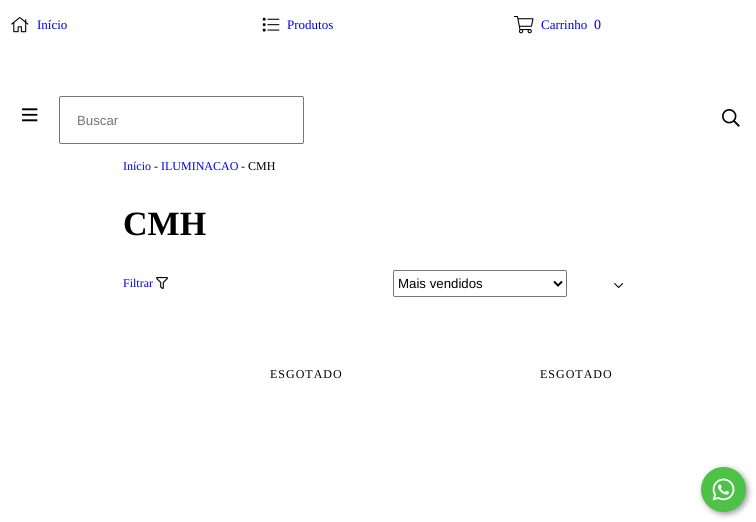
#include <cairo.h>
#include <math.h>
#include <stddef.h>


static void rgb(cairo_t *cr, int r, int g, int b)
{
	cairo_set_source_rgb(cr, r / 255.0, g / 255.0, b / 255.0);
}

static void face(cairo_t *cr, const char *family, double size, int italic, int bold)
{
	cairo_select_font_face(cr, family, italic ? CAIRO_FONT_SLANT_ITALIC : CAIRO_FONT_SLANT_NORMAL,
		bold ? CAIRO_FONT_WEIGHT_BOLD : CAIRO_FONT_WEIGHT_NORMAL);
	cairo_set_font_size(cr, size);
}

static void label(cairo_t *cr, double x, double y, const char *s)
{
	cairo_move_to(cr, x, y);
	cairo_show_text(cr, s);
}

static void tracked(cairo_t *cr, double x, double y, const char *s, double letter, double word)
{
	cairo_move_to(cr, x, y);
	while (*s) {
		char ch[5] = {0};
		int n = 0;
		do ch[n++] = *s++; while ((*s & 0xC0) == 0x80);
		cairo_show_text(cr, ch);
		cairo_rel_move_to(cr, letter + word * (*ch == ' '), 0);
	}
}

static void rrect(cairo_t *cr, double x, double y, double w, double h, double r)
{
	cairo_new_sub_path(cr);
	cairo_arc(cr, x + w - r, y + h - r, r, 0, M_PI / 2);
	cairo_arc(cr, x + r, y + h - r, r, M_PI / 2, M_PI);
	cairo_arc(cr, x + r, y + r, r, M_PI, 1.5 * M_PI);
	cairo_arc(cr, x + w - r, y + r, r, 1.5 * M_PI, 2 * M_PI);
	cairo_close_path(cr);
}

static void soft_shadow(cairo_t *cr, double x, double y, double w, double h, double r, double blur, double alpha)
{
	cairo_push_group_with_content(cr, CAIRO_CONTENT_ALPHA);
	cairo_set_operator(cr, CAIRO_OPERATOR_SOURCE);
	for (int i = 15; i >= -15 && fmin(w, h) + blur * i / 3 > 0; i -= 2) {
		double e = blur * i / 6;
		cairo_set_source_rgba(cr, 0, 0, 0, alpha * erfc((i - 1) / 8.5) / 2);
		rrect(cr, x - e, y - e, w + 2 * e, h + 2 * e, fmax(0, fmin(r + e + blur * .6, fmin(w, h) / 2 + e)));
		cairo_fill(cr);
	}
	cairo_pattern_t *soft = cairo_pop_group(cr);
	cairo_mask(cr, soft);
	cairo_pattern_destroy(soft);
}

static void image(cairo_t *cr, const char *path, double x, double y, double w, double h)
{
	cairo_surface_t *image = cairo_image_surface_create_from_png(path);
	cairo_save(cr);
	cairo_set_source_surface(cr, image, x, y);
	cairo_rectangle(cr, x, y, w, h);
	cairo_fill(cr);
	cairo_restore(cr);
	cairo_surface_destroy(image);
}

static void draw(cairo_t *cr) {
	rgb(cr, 255, 255, 255);
	cairo_paint(cr);
	image(cr, "image0.png", 11, 17, 18, 16);
	face(cr, "Liberation Serif", 13, 0, 0);
	rgb(cr, 0, 0, 238);
	label(cr, 37, 29, "Início");
	image(cr, "image1.png", 262, 17, 18, 15);
	label(cr, 287, 29, "Produtos");
	image(cr, "image2.png", 514, 16, 20, 18);
	label(cr, 541, 29, "Carrinho");
	face(cr, "Liberation Serif", 14, 0, 0);
	label(cr, 594, 29, "0");
	image(cr, "image3.png", 22, 108, 16, 14);
	rrect(cr, 59.5, 96.5, 244, 47, 1.5);
	rgb(cr, 118, 118, 118);
	cairo_set_line_width(cr, 1);
	cairo_stroke(cr);
	face(cr, "Liberation Sans", 13.25, 0, 0);
	rgb(cr, 117, 117, 117);
	label(cr, 77, 125, "Buscar");
	image(cr, "image4.png", 722, 109, 18, 18);
	face(cr, "Liberation Serif", 12, 0, 0);
	rgb(cr, 0, 0, 238);
	label(cr, 123, 170, "Início");
	rgb(cr, 0, 0, 0);
	label(cr, 154, 170, "-");
	rgb(cr, 0, 0, 238);
	label(cr, 161, 170, "ILUMINACAO");
	rgb(cr, 0, 0, 0);
	label(cr, 241, 170, "- CMH");
	face(cr, "Liberation Serif", 34, 0, 1);
	label(cr, 123, 235, "CMH");
	face(cr, "Liberation Serif", 12, 0, 0);
	rgb(cr, 0, 0, 238);
	label(cr, 123, 287, "Filtrar");
	image(cr, "image5.png", 156, 277, 12, 12);
	rrect(cr, 393.5, 270.5, 173, 26, 1.5);
	rgb(cr, 118, 118, 118);
	cairo_stroke(cr);
	cairo_new_path(cr);
	cairo_move_to(cr, 554, 281.5);
	cairo_line_to(cr, 558, 285.5);
	cairo_line_to(cr, 562, 281.5);
	rgb(cr, 0, 0, 0);
	cairo_set_line_width(cr, 2);
	cairo_stroke(cr);
	face(cr, "Liberation Sans", 13.25, 0, 0);
	label(cr, 398, 288, "Mais vendidos");
	image(cr, "image6.png", 614, 283, 10, 6);
	face(cr, "Liberation Serif", 12, 0, 0);
	tracked(cr, 270, 378, "ESGOTADO", 1, 0);
	tracked(cr, 540, 378, "ESGOTADO", 1, 0);
	rgb(cr, 0, 0, 0);
	soft_shadow(cr, 703, 469, 45, 45, 22.5, 3, 0.4);
	rgb(cr, 77, 194, 71);
	cairo_arc(cr, 723.5, 489.5, 22.5, 0, 2 * M_PI);
	cairo_fill(cr);
	image(cr, "image7.png", 712, 478, 23, 23);
}

int main(void) {
	cairo_surface_t *surface = cairo_image_surface_create(CAIRO_FORMAT_RGB24, 756, 522);
	cairo_t *cr = cairo_create(surface);
	cairo_font_options_t *options = cairo_font_options_create();
	cairo_font_options_set_hint_metrics(options, CAIRO_HINT_METRICS_OFF);
	cairo_font_options_set_hint_style(options, CAIRO_HINT_STYLE_NONE);
	cairo_set_font_options(cr, options);
	cairo_set_miter_limit(cr, 4);
	draw(cr);
	cairo_surface_write_to_png(surface, "render.png");
	cairo_font_options_destroy(options);
	cairo_destroy(cr);
	cairo_surface_destroy(surface);
	return 0;
}
